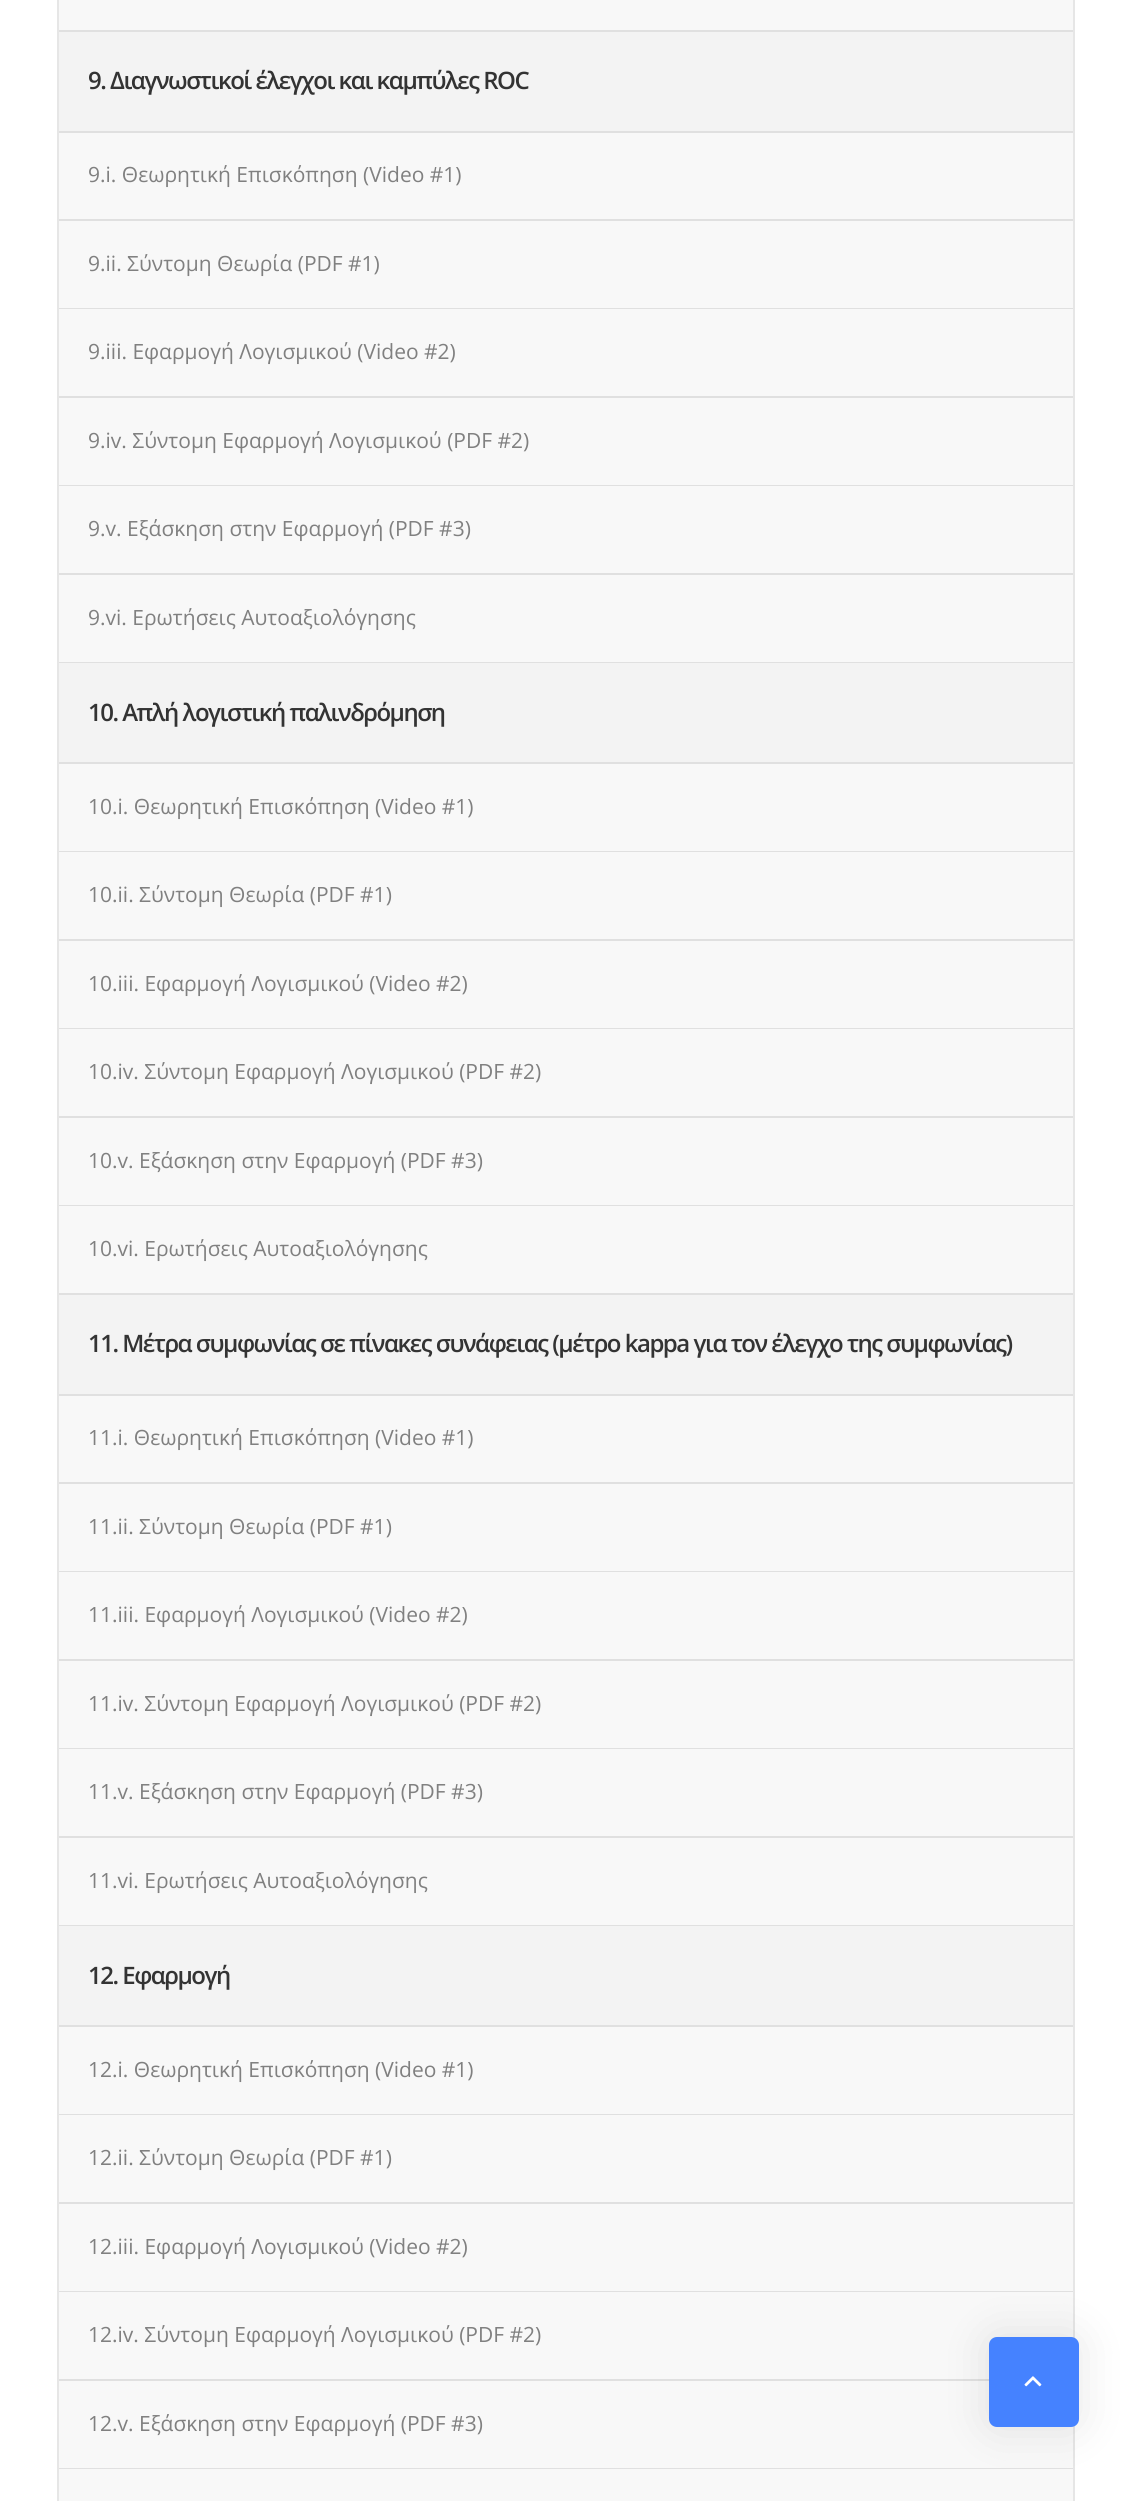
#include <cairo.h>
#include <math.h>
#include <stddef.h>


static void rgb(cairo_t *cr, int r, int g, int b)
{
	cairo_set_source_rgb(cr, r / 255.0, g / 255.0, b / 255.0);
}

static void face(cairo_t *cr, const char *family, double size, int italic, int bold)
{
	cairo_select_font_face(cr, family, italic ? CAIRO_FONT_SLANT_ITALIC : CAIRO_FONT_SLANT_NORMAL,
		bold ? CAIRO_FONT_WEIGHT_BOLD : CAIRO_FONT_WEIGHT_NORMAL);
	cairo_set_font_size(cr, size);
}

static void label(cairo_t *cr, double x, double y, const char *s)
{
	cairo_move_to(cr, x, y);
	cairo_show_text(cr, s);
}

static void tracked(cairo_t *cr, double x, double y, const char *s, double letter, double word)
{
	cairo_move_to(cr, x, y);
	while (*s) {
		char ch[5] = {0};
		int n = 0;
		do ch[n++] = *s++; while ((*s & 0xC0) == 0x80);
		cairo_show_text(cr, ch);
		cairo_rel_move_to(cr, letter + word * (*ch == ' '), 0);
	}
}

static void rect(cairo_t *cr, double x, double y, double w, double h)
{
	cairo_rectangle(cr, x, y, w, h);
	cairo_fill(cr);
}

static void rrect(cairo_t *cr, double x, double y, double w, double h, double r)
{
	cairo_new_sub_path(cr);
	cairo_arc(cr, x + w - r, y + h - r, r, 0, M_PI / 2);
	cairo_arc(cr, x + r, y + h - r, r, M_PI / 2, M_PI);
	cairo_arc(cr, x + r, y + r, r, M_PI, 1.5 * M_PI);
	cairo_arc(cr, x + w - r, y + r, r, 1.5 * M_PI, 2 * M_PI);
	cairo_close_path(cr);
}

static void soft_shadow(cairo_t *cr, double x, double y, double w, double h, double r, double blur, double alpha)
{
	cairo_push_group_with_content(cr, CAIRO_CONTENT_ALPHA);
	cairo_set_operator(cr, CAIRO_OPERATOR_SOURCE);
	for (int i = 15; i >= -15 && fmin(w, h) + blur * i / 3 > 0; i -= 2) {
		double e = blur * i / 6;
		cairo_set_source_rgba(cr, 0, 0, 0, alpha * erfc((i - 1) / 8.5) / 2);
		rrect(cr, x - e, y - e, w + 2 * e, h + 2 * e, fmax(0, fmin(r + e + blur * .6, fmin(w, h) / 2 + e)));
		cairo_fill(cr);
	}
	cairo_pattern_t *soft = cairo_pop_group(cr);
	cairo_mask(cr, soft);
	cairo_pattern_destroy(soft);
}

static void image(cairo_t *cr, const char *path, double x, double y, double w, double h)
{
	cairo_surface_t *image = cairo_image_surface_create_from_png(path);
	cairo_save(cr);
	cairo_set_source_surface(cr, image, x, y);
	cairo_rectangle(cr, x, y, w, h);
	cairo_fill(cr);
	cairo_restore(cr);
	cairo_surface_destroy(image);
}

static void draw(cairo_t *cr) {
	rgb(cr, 255, 255, 255);
	cairo_paint(cr);
	rgb(cr, 230, 230, 230);
	rect(cr, 1073, 0, 2, 2501);
	rect(cr, 57, 0, 2, 2501);
	rgb(cr, 248, 248, 248);
	rect(cr, 59, 0, 1014, 30);
	rgb(cr, 224, 224, 224);
	rect(cr, 59, 30, 1014, 2);
	rgb(cr, 243, 243, 243);
	rect(cr, 59, 32, 1014, 99);
	face(cr, "Open Sans SemiBold", 24, 0, 0);
	rgb(cr, 51, 51, 51);
	tracked(cr, 88, 89, "9. Διαγνωστικοί έλεγχοι και καμπύλες ROC", -1.5, 0);
	rgb(cr, 248, 248, 248);
	rect(cr, 59, 133, 1014, 86);
	rgb(cr, 224, 224, 224);
	rect(cr, 59, 131, 1014, 2);
	rect(cr, 59, 219, 1014, 2);
	face(cr, "Open Sans", 21, 0, 0);
	rgb(cr, 128, 128, 128);
	label(cr, 88, 182, "9.i. Θεωρητική Επισκόπηση (Video #1)");
	rgb(cr, 248, 248, 248);
	rect(cr, 59, 221, 1014, 87);
	rgb(cr, 224, 224, 224);
	rect(cr, 59, 308, 1014, 1);
	rgb(cr, 128, 128, 128);
	label(cr, 88, 271, "9.ii. Σύντομη Θεωρία (PDF #1)");
	rgb(cr, 248, 248, 248);
	rect(cr, 59, 309, 1014, 87);
	rgb(cr, 224, 224, 224);
	rect(cr, 59, 396, 1014, 2);
	rgb(cr, 128, 128, 128);
	label(cr, 88, 359, "9.iii. Εφαρμογή Λογισμικού (Video #2)");
	rgb(cr, 248, 248, 248);
	rect(cr, 59, 398, 1014, 87);
	rgb(cr, 224, 224, 224);
	rect(cr, 59, 485, 1014, 1);
	rgb(cr, 128, 128, 128);
	label(cr, 88, 448, "9.iv. Σύντομη Εφαρμογή Λογισμικού (PDF #2)");
	rgb(cr, 248, 248, 248);
	rect(cr, 59, 486, 1014, 87);
	rgb(cr, 224, 224, 224);
	rect(cr, 59, 573, 1014, 2);
	rgb(cr, 128, 128, 128);
	label(cr, 88, 536, "9.v. Εξάσκηση στην Εφαρμογή (PDF #3)");
	rgb(cr, 248, 248, 248);
	rect(cr, 59, 575, 1014, 87);
	rgb(cr, 224, 224, 224);
	rect(cr, 59, 662, 1014, 1);
	rgb(cr, 128, 128, 128);
	label(cr, 88, 625, "9.vi. Ερωτήσεις Αυτοαξιολόγησης");
	rgb(cr, 243, 243, 243);
	rect(cr, 59, 663, 1014, 99);
	face(cr, "Open Sans SemiBold", 24, 0, 0);
	rgb(cr, 51, 51, 51);
	tracked(cr, 88, 721, "10. Απλή λογιστική παλινδρόμηση", -1.5, 0);
	rgb(cr, 248, 248, 248);
	rect(cr, 59, 764, 1014, 87);
	rgb(cr, 224, 224, 224);
	rect(cr, 59, 762, 1014, 2);
	rect(cr, 59, 851, 1014, 1);
	face(cr, "Open Sans", 21, 0, 0);
	rgb(cr, 128, 128, 128);
	label(cr, 88, 814, "10.i. Θεωρητική Επισκόπηση (Video #1)");
	rgb(cr, 248, 248, 248);
	rect(cr, 59, 852, 1014, 87);
	rgb(cr, 224, 224, 224);
	rect(cr, 59, 939, 1014, 2);
	rgb(cr, 128, 128, 128);
	label(cr, 88, 902, "10.ii. Σύντομη Θεωρία (PDF #1)");
	rgb(cr, 248, 248, 248);
	rect(cr, 59, 941, 1014, 87);
	rgb(cr, 224, 224, 224);
	rect(cr, 59, 1028, 1014, 1);
	rgb(cr, 128, 128, 128);
	label(cr, 88, 991, "10.iii. Εφαρμογή Λογισμικού (Video #2)");
	rgb(cr, 248, 248, 248);
	rect(cr, 59, 1029, 1014, 87);
	rgb(cr, 224, 224, 224);
	rect(cr, 59, 1116, 1014, 2);
	rgb(cr, 128, 128, 128);
	label(cr, 88, 1079, "10.iv. Σύντομη Εφαρμογή Λογισμικού (PDF #2)");
	rgb(cr, 248, 248, 248);
	rect(cr, 59, 1118, 1014, 87);
	rgb(cr, 224, 224, 224);
	rect(cr, 59, 1205, 1014, 1);
	rgb(cr, 128, 128, 128);
	label(cr, 88, 1168, "10.v. Εξάσκηση στην Εφαρμογή (PDF #3)");
	rgb(cr, 248, 248, 248);
	rect(cr, 59, 1206, 1014, 87);
	rgb(cr, 224, 224, 224);
	rect(cr, 59, 1293, 1014, 2);
	rgb(cr, 128, 128, 128);
	label(cr, 88, 1256, "10.vi. Ερωτήσεις Αυτοαξιολόγησης");
	rgb(cr, 243, 243, 243);
	rect(cr, 59, 1295, 1014, 99);
	face(cr, "Open Sans SemiBold", 24, 0, 0);
	rgb(cr, 51, 51, 51);
	tracked(cr, 88, 1352, "11. Μέτρα συμφωνίας σε πίνακες συνάφειας (μέτρο kappa για τον έλεγχο της συμφωνίας)", -1.5, 0);
	rgb(cr, 248, 248, 248);
	rect(cr, 59, 1396, 1014, 86);
	rgb(cr, 224, 224, 224);
	rect(cr, 59, 1394, 1014, 2);
	rect(cr, 59, 1482, 1014, 2);
	face(cr, "Open Sans", 21, 0, 0);
	rgb(cr, 128, 128, 128);
	label(cr, 88, 1445, "11.i. Θεωρητική Επισκόπηση (Video #1)");
	rgb(cr, 248, 248, 248);
	rect(cr, 59, 1484, 1014, 87);
	rgb(cr, 224, 224, 224);
	rect(cr, 59, 1571, 1014, 1);
	rgb(cr, 128, 128, 128);
	label(cr, 88, 1534, "11.ii. Σύντομη Θεωρία (PDF #1)");
	rgb(cr, 248, 248, 248);
	rect(cr, 59, 1572, 1014, 87);
	rgb(cr, 224, 224, 224);
	rect(cr, 59, 1659, 1014, 2);
	rgb(cr, 128, 128, 128);
	label(cr, 88, 1622, "11.iii. Εφαρμογή Λογισμικού (Video #2)");
	rgb(cr, 248, 248, 248);
	rect(cr, 59, 1661, 1014, 87);
	rgb(cr, 224, 224, 224);
	rect(cr, 59, 1748, 1014, 1);
	rgb(cr, 128, 128, 128);
	label(cr, 88, 1711, "11.iv. Σύντομη Εφαρμογή Λογισμικού (PDF #2)");
	rgb(cr, 248, 248, 248);
	rect(cr, 59, 1749, 1014, 87);
	rgb(cr, 224, 224, 224);
	rect(cr, 59, 1836, 1014, 2);
	rgb(cr, 128, 128, 128);
	label(cr, 88, 1799, "11.v. Εξάσκηση στην Εφαρμογή (PDF #3)");
	rgb(cr, 248, 248, 248);
	rect(cr, 59, 1838, 1014, 87);
	rgb(cr, 224, 224, 224);
	rect(cr, 59, 1925, 1014, 1);
	rgb(cr, 128, 128, 128);
	label(cr, 88, 1888, "11.vi. Ερωτήσεις Αυτοαξιολόγησης");
	rgb(cr, 243, 243, 243);
	rect(cr, 59, 1926, 1014, 99);
	face(cr, "Open Sans SemiBold", 24, 0, 0);
	rgb(cr, 51, 51, 51);
	tracked(cr, 88, 1984, "12. Εφαρμογή", -1.5, 0);
	rgb(cr, 248, 248, 248);
	rect(cr, 59, 2027, 1014, 87);
	rgb(cr, 224, 224, 224);
	rect(cr, 59, 2025, 1014, 2);
	rect(cr, 59, 2114, 1014, 1);
	face(cr, "Open Sans", 21, 0, 0);
	rgb(cr, 128, 128, 128);
	label(cr, 88, 2077, "12.i. Θεωρητική Επισκόπηση (Video #1)");
	rgb(cr, 248, 248, 248);
	rect(cr, 59, 2115, 1014, 87);
	rgb(cr, 224, 224, 224);
	rect(cr, 59, 2202, 1014, 2);
	rgb(cr, 128, 128, 128);
	label(cr, 88, 2165, "12.ii. Σύντομη Θεωρία (PDF #1)");
	rgb(cr, 248, 248, 248);
	rect(cr, 59, 2204, 1014, 87);
	rgb(cr, 224, 224, 224);
	rect(cr, 59, 2291, 1014, 1);
	rgb(cr, 128, 128, 128);
	label(cr, 88, 2254, "12.iii. Εφαρμογή Λογισμικού (Video #2)");
	rgb(cr, 248, 248, 248);
	rect(cr, 59, 2292, 1014, 87);
	rgb(cr, 224, 224, 224);
	rect(cr, 59, 2379, 930, 2);
	rgb(cr, 128, 128, 128);
	label(cr, 88, 2342, "12.iv. Σύντομη Εφαρμογή Λογισμικού (PDF #2)");
	rgb(cr, 248, 248, 248);
	rect(cr, 59, 2381, 1014, 87);
	rgb(cr, 224, 224, 224);
	rect(cr, 59, 2468, 1014, 1);
	rgb(cr, 128, 128, 128);
	label(cr, 88, 2431, "12.v. Εξάσκηση στην Εφαρμογή (PDF #3)");
	rgb(cr, 248, 248, 248);
	rect(cr, 59, 2469, 1014, 32);
	rgb(cr, 0, 0, 0);
	soft_shadow(cr, 989, 2337, 90, 90, 8, 22.5, 0.1);
	rgb(cr, 69, 130, 255);
	rrect(cr, 989, 2337, 90, 90, 8);
	cairo_fill(cr);
	image(cr, "image0.png", 1024, 2376, 18, 11);
}

int main(void) {
	cairo_surface_t *surface = cairo_image_surface_create(CAIRO_FORMAT_RGB24, 1130, 2501);
	cairo_t *cr = cairo_create(surface);
	cairo_font_options_t *options = cairo_font_options_create();
	cairo_font_options_set_hint_metrics(options, CAIRO_HINT_METRICS_OFF);
	cairo_font_options_set_hint_style(options, CAIRO_HINT_STYLE_NONE);
	cairo_set_font_options(cr, options);
	cairo_set_miter_limit(cr, 4);
	draw(cr);
	cairo_surface_write_to_png(surface, "render.png");
	cairo_font_options_destroy(options);
	cairo_destroy(cr);
	cairo_surface_destroy(surface);
	return 0;
}
